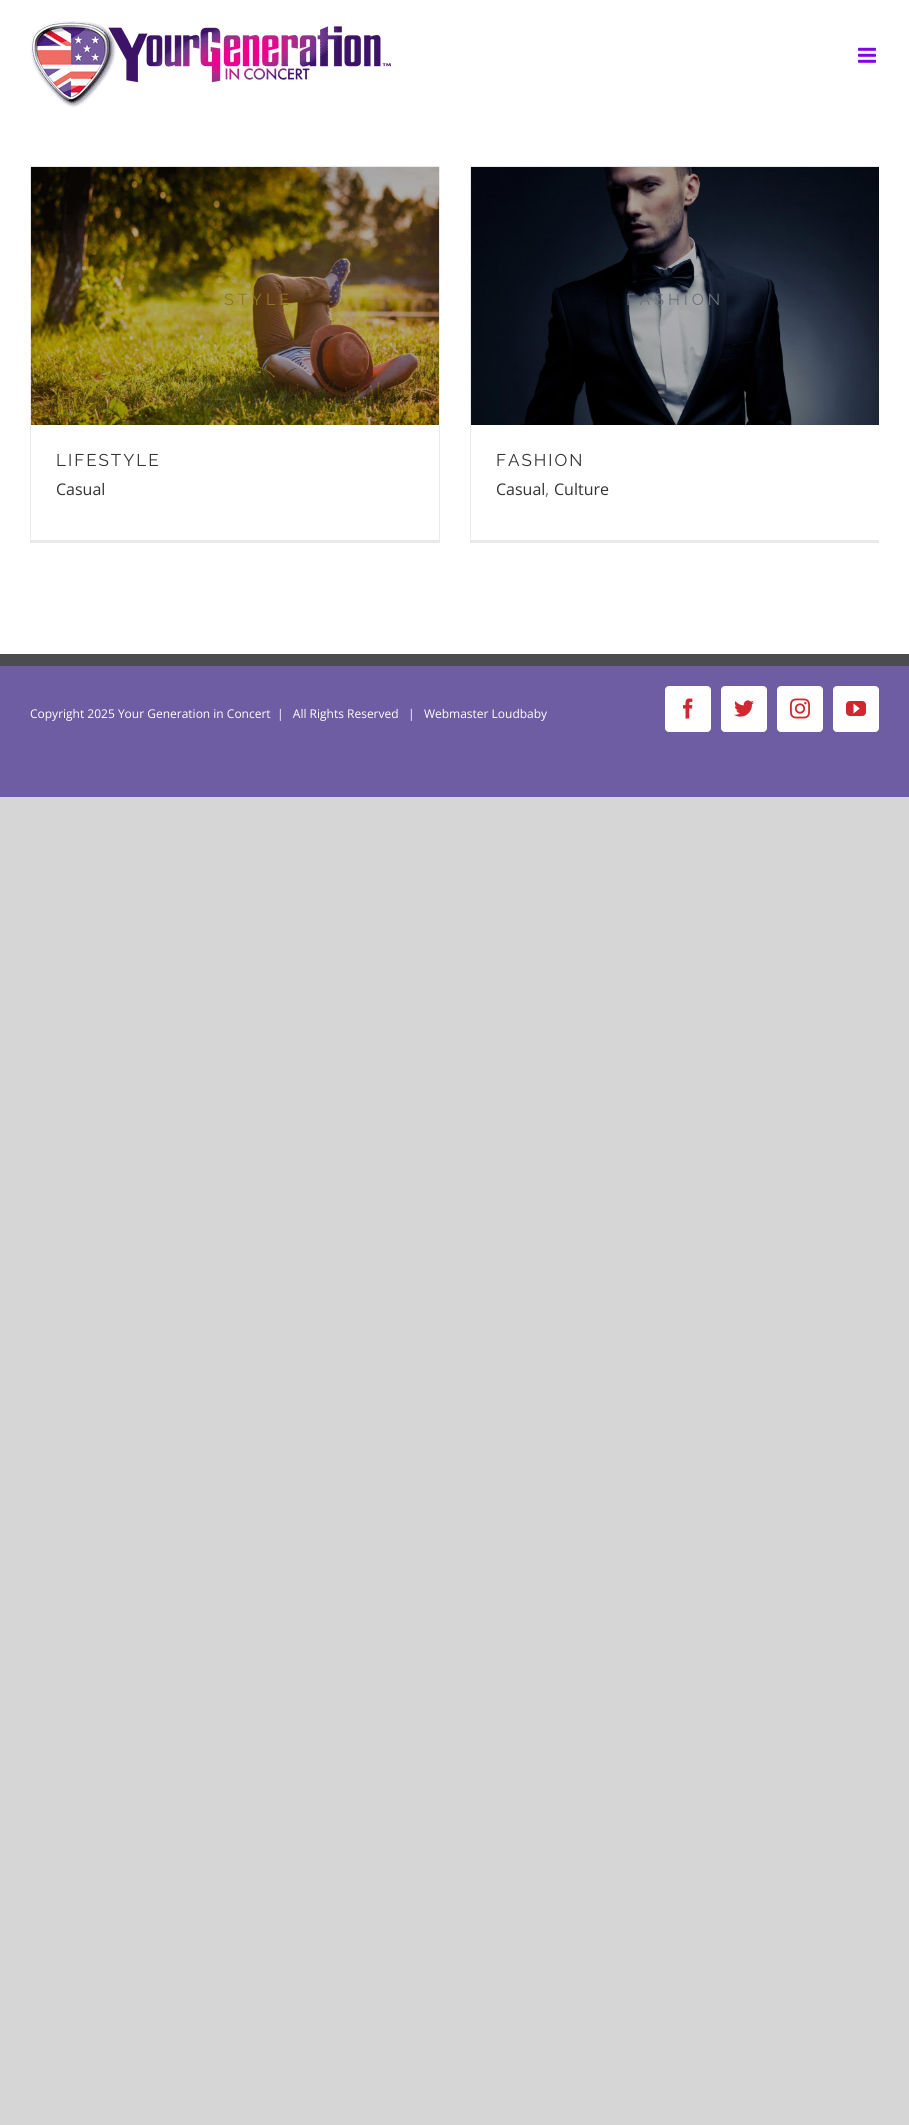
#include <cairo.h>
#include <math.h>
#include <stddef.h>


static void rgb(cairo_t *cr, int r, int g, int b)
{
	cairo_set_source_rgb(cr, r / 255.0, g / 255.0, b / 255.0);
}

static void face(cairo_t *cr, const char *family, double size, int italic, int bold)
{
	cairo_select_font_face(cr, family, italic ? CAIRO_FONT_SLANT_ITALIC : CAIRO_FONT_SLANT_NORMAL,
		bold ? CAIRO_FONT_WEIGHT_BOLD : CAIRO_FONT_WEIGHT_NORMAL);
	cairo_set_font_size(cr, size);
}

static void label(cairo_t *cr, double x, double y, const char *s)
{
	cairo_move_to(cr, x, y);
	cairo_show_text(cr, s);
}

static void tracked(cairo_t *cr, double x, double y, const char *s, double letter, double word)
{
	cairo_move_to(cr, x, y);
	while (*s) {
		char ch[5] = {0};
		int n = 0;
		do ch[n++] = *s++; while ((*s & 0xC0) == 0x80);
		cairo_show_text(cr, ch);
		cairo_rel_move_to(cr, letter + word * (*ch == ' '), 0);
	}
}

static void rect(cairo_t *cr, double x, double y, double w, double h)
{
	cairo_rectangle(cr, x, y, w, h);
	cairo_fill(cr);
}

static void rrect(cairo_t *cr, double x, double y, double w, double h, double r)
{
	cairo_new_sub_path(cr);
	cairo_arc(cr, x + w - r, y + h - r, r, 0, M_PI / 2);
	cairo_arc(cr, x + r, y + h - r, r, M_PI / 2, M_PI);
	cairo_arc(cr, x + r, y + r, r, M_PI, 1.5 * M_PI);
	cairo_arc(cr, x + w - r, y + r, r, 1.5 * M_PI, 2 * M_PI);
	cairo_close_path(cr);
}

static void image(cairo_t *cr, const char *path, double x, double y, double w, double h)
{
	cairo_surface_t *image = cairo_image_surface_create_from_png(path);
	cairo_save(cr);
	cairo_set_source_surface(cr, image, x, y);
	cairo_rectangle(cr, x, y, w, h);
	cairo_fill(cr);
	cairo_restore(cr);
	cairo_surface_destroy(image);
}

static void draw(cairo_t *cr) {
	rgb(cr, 215, 214, 214);
	cairo_paint(cr);
	rgb(cr, 255, 255, 255);
	rect(cr, 0, 0, 909, 654);
	image(cr, "image0.png", 30, 21, 361, 87);
	image(cr, "image1.png", 858, 47, 18, 16);
	rgb(cr, 235, 234, 234);
	rect(cr, 30, 166, 410, 1);
	rect(cr, 439, 166, 1, 377);
	rect(cr, 30, 540, 410, 3);
	rect(cr, 30, 166, 1, 377);
	image(cr, "image2.png", 31, 167, 408, 258);
	face(cr, "Raleway", 16, 0, 0);
	rgb(cr, 141, 120, 34);
	tracked(cr, 224, 305, "STYLE", 4, 0);
	face(cr, "Raleway", 17, 0, 0);
	rgb(cr, 51, 51, 51);
	tracked(cr, 56, 466, "LIFESTYLE", 2, 0);
	face(cr, "Open Sans", 16, 0, 0);
	label(cr, 56, 495, "Casual");
	rgb(cr, 235, 234, 234);
	rect(cr, 470, 166, 409, 1);
	rect(cr, 470, 540, 409, 3);
	rect(cr, 470, 166, 1, 377);
	image(cr, "image3.png", 471, 167, 408, 258);
	face(cr, "Raleway", 16, 0, 0);
	rgb(cr, 107, 112, 121);
	tracked(cr, 626, 305, "FASHION", 4, 0);
	face(cr, "Raleway", 17, 0, 0);
	rgb(cr, 51, 51, 51);
	tracked(cr, 496, 466, "FASHION", 2, 0);
	face(cr, "Open Sans", 16, 0, 0);
	label(cr, 496, 495, "Casual");
	rgb(cr, 116, 116, 116);
	label(cr, 545, 495, ",");
	rgb(cr, 51, 51, 51);
	label(cr, 554, 495, "Culture");
	rgb(cr, 110, 93, 163);
	rect(cr, 0, 666, 909, 131);
	rgb(cr, 75, 76, 77);
	rect(cr, 0, 654, 909, 12);
	face(cr, "Open Sans", 12, 0, 0);
	rgb(cr, 255, 255, 255);
	label(cr, 30, 718, "Copyright 2025 Your Generation in Concert  |   All Rights Reserved   |   Webmaster Loudbaby");
	rrect(cr, 665.5, 686.5, 45, 45, 3.5);
	cairo_fill_preserve(cr);
	cairo_set_line_width(cr, 1);
	cairo_stroke(cr);
	image(cr, "image4.png", 683, 698, 10, 21);
	rrect(cr, 721.5, 686.5, 45, 45, 3.5);
	cairo_fill_preserve(cr);
	cairo_stroke(cr);
	image(cr, "image5.png", 734, 700, 20, 17);
	rrect(cr, 777.5, 686.5, 45, 45, 3.5);
	cairo_fill_preserve(cr);
	cairo_stroke(cr);
	image(cr, "image6.png", 790, 698, 20, 21);
	rrect(cr, 833.5, 686.5, 45, 45, 3.5);
	cairo_fill_preserve(cr);
	cairo_stroke(cr);
	image(cr, "image7.png", 846, 701, 20, 15);
}

int main(void) {
	cairo_surface_t *surface = cairo_image_surface_create(CAIRO_FORMAT_RGB24, 909, 2125);
	cairo_t *cr = cairo_create(surface);
	cairo_font_options_t *options = cairo_font_options_create();
	cairo_font_options_set_hint_metrics(options, CAIRO_HINT_METRICS_OFF);
	cairo_font_options_set_hint_style(options, CAIRO_HINT_STYLE_NONE);
	cairo_set_font_options(cr, options);
	cairo_set_miter_limit(cr, 4);
	draw(cr);
	cairo_surface_write_to_png(surface, "render.png");
	cairo_font_options_destroy(options);
	cairo_destroy(cr);
	cairo_surface_destroy(surface);
	return 0;
}
